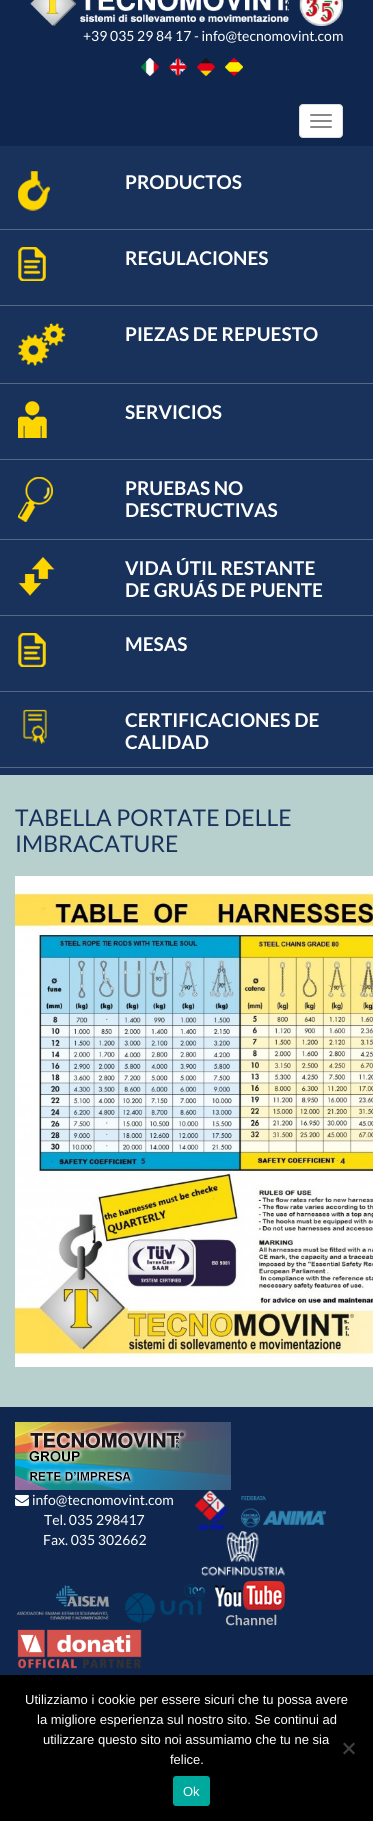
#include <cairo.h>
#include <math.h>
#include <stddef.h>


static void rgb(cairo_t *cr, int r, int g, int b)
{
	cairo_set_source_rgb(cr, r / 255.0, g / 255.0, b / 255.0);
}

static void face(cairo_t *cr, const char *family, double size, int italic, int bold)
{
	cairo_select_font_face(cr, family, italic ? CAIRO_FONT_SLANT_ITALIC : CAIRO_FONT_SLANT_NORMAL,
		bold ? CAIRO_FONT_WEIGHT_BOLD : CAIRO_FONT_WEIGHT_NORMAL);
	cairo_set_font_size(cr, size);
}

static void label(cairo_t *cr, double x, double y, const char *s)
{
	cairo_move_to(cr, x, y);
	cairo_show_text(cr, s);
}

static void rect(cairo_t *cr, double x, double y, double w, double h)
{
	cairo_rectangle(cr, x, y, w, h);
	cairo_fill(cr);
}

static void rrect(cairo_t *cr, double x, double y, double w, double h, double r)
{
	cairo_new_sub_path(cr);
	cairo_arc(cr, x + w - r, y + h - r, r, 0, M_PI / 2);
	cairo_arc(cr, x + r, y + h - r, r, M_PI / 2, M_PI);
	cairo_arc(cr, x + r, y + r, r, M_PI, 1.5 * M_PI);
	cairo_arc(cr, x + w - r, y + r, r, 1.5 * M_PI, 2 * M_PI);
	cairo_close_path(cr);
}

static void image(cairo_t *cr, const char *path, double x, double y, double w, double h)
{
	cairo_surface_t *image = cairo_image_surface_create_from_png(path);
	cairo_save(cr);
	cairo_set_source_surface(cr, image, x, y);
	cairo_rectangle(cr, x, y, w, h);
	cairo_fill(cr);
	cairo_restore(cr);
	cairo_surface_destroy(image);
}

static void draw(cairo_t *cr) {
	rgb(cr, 24, 50, 92);
	cairo_paint(cr);
	rgb(cr, 15, 39, 79);
	rect(cr, 0, 0, 373, 146);
	image(cr, "image0.png", 30, 0, 313, 26);
	face(cr, "Lato", 14, 0, 0);
	rgb(cr, 255, 255, 255);
	label(cr, 83, 41, "+39 035 29 84 17 - info@tecnomovint.com");
	image(cr, "image1.png", 141, 58, 18, 18);
	image(cr, "image2.png", 169, 58, 18, 18);
	image(cr, "image3.png", 197, 58, 18, 18);
	image(cr, "image4.png", 225, 58, 18, 18);
	rrect(cr, 299.5, 104.5, 43, 33, 3.5);
	cairo_fill_preserve(cr);
	rgb(cr, 221, 221, 221);
	cairo_set_line_width(cr, 1);
	cairo_stroke(cr);
	rgb(cr, 136, 136, 136);
	rrect(cr, 310, 114, 22, 2, 1);
	cairo_fill(cr);
	rrect(cr, 310, 120, 22, 2, 1);
	cairo_fill(cr);
	rrect(cr, 310, 126, 22, 2, 1);
	cairo_fill(cr);
	rgb(cr, 87, 104, 132);
	rect(cr, 0, 229, 373, 1);
	image(cr, "image5.png", 18, 171, 32, 40);
	face(cr, "Lato", 19, 0, 1);
	rgb(cr, 255, 255, 255);
	label(cr, 125, 189, "PRODUCTOS");
	rgb(cr, 87, 104, 132);
	rect(cr, 0, 305, 373, 1);
	image(cr, "image6.png", 18, 247, 28, 34);
	rgb(cr, 255, 255, 255);
	label(cr, 125, 265, "REGULACIONES");
	rgb(cr, 87, 104, 132);
	rect(cr, 0, 383, 373, 1);
	image(cr, "image7.png", 18, 323, 48, 43);
	rgb(cr, 255, 255, 255);
	label(cr, 125, 341, "PIEZAS DE REPUESTO");
	rgb(cr, 87, 104, 132);
	rect(cr, 0, 459, 373, 1);
	image(cr, "image8.png", 18, 401, 29, 37);
	rgb(cr, 255, 255, 255);
	label(cr, 125, 419, "SERVICIOS");
	rgb(cr, 87, 104, 132);
	rect(cr, 0, 539, 373, 1);
	image(cr, "image9.png", 18, 477, 35, 45);
	rgb(cr, 255, 255, 255);
	label(cr, 125, 495, "PRUEBAS NO");
	label(cr, 125, 517, "DESCTRUCTIVAS");
	rgb(cr, 87, 104, 132);
	rect(cr, 0, 615, 373, 1);
	image(cr, "image10.png", 18, 557, 37, 39);
	rgb(cr, 255, 255, 255);
	label(cr, 125, 575, "VIDA ÚTIL RESTANTE");
	label(cr, 125, 597, "DE GRUÁS DE PUENTE");
	rgb(cr, 87, 104, 132);
	rect(cr, 0, 691, 373, 1);
	image(cr, "image6.png", 18, 633, 28, 34);
	rgb(cr, 255, 255, 255);
	label(cr, 125, 651, "MESAS");
	rgb(cr, 87, 104, 132);
	rect(cr, 0, 767, 373, 1);
	image(cr, "image11.png", 23, 709, 24, 36);
	rgb(cr, 255, 255, 255);
	label(cr, 125, 727, "CERTIFICACIONES DE");
	label(cr, 125, 749, "CALIDAD");
	rgb(cr, 183, 208, 205);
	rect(cr, 0, 775, 373, 632);
	face(cr, "Lato", 23, 0, 0);
	rgb(cr, 24, 50, 92);
	label(cr, 15, 826, "TABELLA PORTATE DELLE");
	label(cr, 15, 852, "IMBRACATURE");
	image(cr, "image12.png", 15, 876, 358, 491);
	rgb(cr, 15, 39, 79);
	rect(cr, 0, 1407, 373, 268);
	image(cr, "image13.png", 15, 1422, 216, 68);
	image(cr, "image14.png", 194, 1490, 34, 40);
	image(cr, "image15.png", 241, 1496, 85, 32);
	image(cr, "image16.png", 201, 1531, 84, 45);
	image(cr, "image17.png", 16, 1585, 94, 35);
	image(cr, "image18.png", 125, 1584, 80, 39);
	image(cr, "image19.png", 215, 1581, 70, 45);
	image(cr, "image20.png", 17, 1629, 125, 40);
	image(cr, "image21.png", 15, 1495, 14, 11);
	face(cr, "Lato", 14, 0, 0);
	rgb(cr, 255, 255, 255);
	label(cr, 32, 1505, "info@tecnomovint.com");
	label(cr, 44, 1525, "Tel. 035 298417");
	label(cr, 43, 1545, "Fax. 035 302662");
	rgb(cr, 0, 0, 0);
	rect(cr, 0, 1675, 373, 146);
	face(cr, "Liberation Sans", 13, 0, 0);
	rgb(cr, 255, 255, 255);
	label(cr, 25, 1704, "Utilizziamo i cookie per essere sicuri che tu possa avere");
	label(cr, 37, 1724, "la migliore esperienza sul nostro sito. Se continui ad");
	label(cr, 43, 1744, "utilizzare questo sito noi assumiamo che tu ne sia");
	label(cr, 170, 1764, "felice.");
	rgb(cr, 64, 64, 64);
	cairo_new_path(cr);
	cairo_move_to(cr, 353.5, 1742.5);
	cairo_line_to(cr, 355, 1744);
	cairo_line_to(cr, 344.5, 1754.5);
	cairo_line_to(cr, 343, 1753);
	cairo_close_path(cr);
	cairo_fill(cr);
	cairo_new_path(cr);
	cairo_move_to(cr, 343, 1744);
	cairo_line_to(cr, 344.5, 1742.5);
	cairo_line_to(cr, 355, 1753);
	cairo_line_to(cr, 353.5, 1754.5);
	cairo_close_path(cr);
	cairo_fill(cr);
	rgb(cr, 0, 169, 157);
	rrect(cr, 173, 1776, 37, 30, 3);
	cairo_fill(cr);
	rgb(cr, 255, 255, 255);
	label(cr, 183, 1796, "Ok");
}

int main(void) {
	cairo_surface_t *surface = cairo_image_surface_create(CAIRO_FORMAT_RGB24, 373, 1821);
	cairo_t *cr = cairo_create(surface);
	cairo_font_options_t *options = cairo_font_options_create();
	cairo_font_options_set_hint_metrics(options, CAIRO_HINT_METRICS_OFF);
	cairo_font_options_set_hint_style(options, CAIRO_HINT_STYLE_NONE);
	cairo_set_font_options(cr, options);
	cairo_set_miter_limit(cr, 4);
	draw(cr);
	cairo_surface_write_to_png(surface, "render.png");
	cairo_font_options_destroy(options);
	cairo_destroy(cr);
	cairo_surface_destroy(surface);
	return 0;
}
